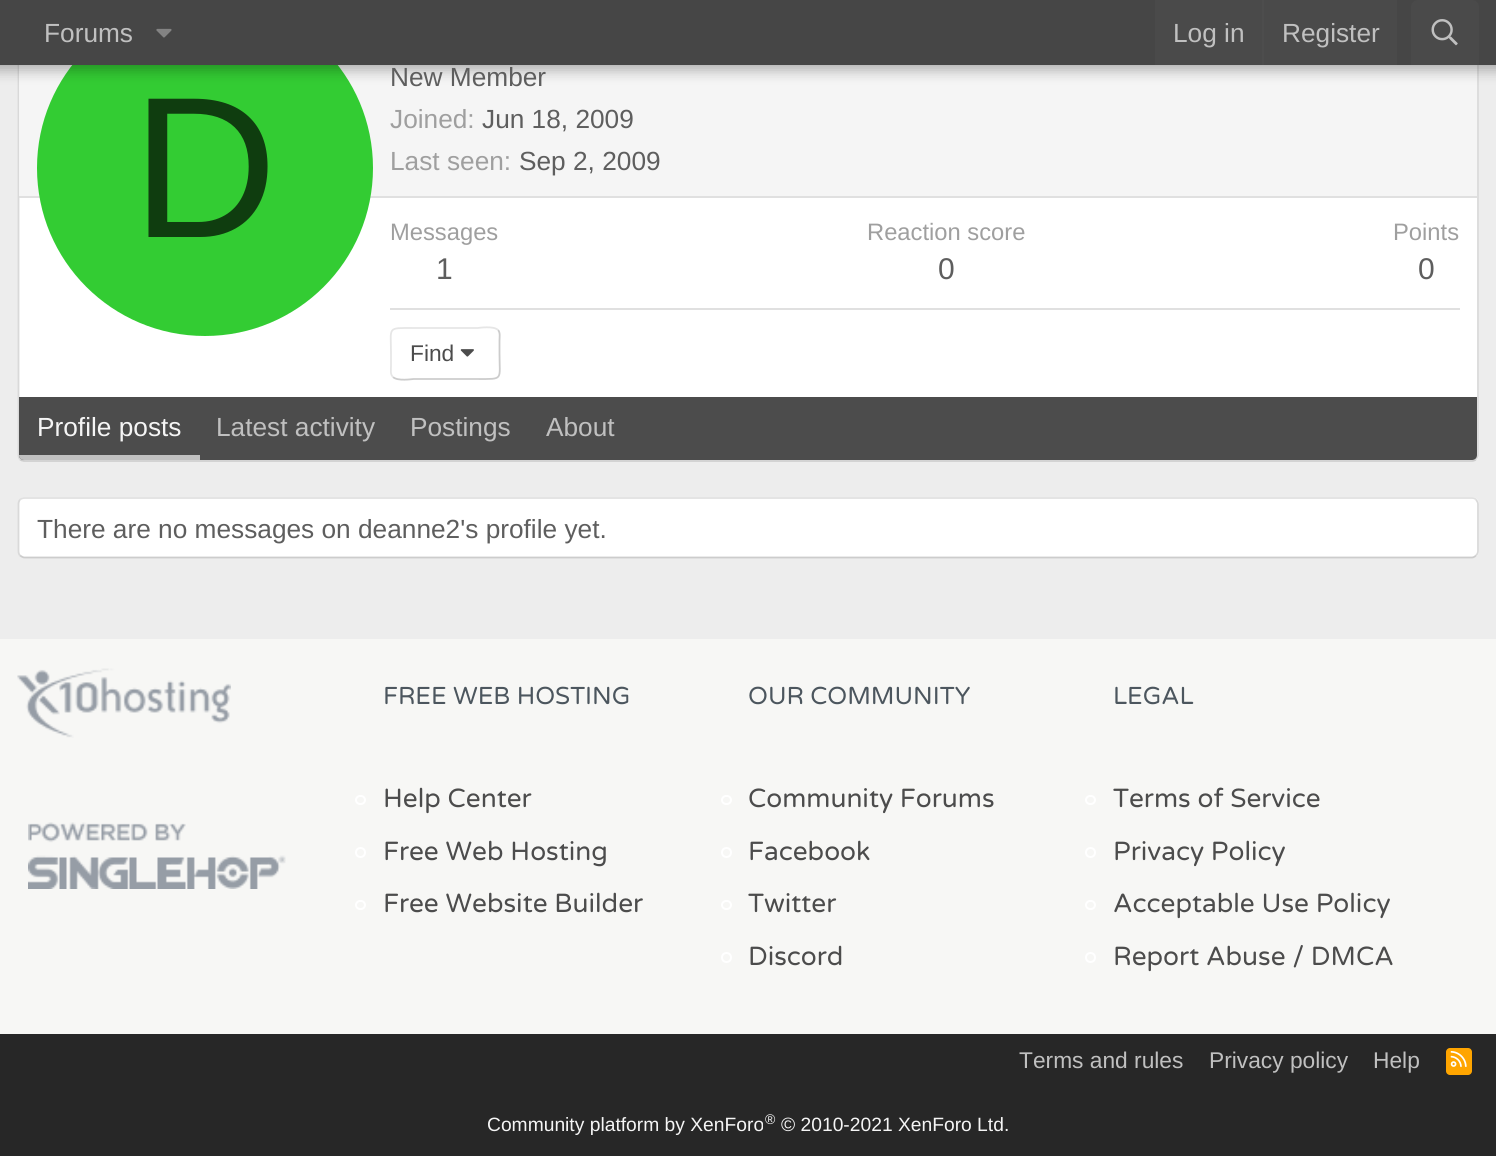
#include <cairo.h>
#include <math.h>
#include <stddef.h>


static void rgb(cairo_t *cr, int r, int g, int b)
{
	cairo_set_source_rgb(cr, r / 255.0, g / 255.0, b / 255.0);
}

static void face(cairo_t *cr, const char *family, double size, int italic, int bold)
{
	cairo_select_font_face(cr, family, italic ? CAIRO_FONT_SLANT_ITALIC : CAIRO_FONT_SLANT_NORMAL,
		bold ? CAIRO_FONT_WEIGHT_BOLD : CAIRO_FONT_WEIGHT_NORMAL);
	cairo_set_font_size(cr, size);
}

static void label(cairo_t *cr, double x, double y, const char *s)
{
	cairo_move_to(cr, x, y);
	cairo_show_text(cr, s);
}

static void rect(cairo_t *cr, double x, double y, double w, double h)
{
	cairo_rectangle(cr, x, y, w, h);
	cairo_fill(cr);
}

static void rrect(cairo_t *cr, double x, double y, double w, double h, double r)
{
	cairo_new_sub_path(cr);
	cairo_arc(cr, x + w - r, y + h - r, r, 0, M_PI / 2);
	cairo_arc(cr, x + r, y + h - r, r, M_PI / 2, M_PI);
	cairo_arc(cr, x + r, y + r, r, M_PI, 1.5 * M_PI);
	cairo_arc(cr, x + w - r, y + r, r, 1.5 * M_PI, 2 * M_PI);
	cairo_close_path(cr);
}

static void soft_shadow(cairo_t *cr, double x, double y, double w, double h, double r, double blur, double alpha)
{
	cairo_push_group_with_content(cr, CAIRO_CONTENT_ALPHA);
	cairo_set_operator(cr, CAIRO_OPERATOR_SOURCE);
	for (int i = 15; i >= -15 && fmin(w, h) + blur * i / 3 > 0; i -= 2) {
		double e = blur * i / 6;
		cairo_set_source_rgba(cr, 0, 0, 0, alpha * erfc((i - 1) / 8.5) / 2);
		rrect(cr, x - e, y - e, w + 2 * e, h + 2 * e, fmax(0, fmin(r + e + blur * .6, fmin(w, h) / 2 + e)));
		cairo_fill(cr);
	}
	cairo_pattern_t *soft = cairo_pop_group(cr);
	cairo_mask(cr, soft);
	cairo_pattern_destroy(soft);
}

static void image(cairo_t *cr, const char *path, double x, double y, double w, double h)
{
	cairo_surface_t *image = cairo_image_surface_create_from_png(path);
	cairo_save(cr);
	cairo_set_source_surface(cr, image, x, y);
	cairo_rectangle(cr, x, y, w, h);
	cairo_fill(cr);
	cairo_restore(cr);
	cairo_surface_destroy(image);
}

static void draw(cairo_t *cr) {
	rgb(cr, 237, 237, 237);
	cairo_paint(cr);
	rgb(cr, 255, 255, 255);
	rrect(cr, 18, -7, 1461, 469, 7);
	cairo_fill(cr);
	cairo_new_path(cr);
	cairo_move_to(cr, 1476, -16.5);
	cairo_curve_to(cr, 1477, -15.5, 1478, -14, 1478, -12.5);
	cairo_line_to(cr, 1478, 455);
	cairo_curve_to(cr, 1478, 456.5, 1477, 458, 1476, 459.5);
	rgb(cr, 217, 217, 217);
	cairo_set_line_width(cr, 1.8);
	cairo_stroke(cr);
	cairo_new_path(cr);
	cairo_move_to(cr, 1476, 459.5);
	cairo_curve_to(cr, 1475, 460.5, 1473.5, 461, 1472, 461);
	cairo_line_to(cr, 24.5, 461);
	cairo_curve_to(cr, 23, 461, 21.5, 460.5, 20, 459.5);
	rgb(cr, 204, 204, 204);
	cairo_stroke(cr);
	cairo_new_path(cr);
	cairo_move_to(cr, 20, 459.5);
	cairo_curve_to(cr, 19, 458, 18.5, 456.5, 18.5, 455);
	cairo_line_to(cr, 18.5, -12);
	cairo_curve_to(cr, 18.5, -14, 19, -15.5, 20, -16.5);
	rgb(cr, 217, 217, 217);
	cairo_stroke(cr);
	rgb(cr, 245, 245, 245);
	rect(cr, 19, 65, 1458, 131);
	rgb(cr, 224, 224, 224);
	rect(cr, 19, 196, 1458, 2);
	rgb(cr, 51, 204, 51);
	cairo_arc(cr, 205, 168, 168, 0, 2 * M_PI);
	cairo_fill(cr);
	rgb(cr, 0, 0, 0);
	soft_shadow(cr, -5, -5, 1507, 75, 0, 7, 0.3);
	rgb(cr, 70, 70, 70);
	rect(cr, 0, 0, 1496, 65);
	face(cr, "Liberation Sans", 26.25, 0, 0);
	rgb(cr, 192, 192, 192);
	label(cr, 44, 42, "Forums");
	image(cr, "image0.png", 156, 28, 16, 10);
	rgb(cr, 74, 74, 74);
	rect(cr, 1155, 0, 242, 65);
	rgb(cr, 192, 192, 192);
	label(cr, 1173, 42, "Log in");
	rgb(cr, 77, 77, 77);
	rect(cr, 1262, 0, 2, 65);
	rgb(cr, 192, 192, 192);
	label(cr, 1282, 42, "Register");
	rgb(cr, 74, 74, 74);
	cairo_new_path(cr);
	cairo_move_to(cr, 1418, 0);
	cairo_line_to(cr, 1472, 0);
	cairo_curve_to(cr, 1476, 0, 1479, 3, 1479, 7);
	cairo_line_to(cr, 1479, 65);
	cairo_line_to(cr, 1411, 65);
	cairo_line_to(cr, 1411, 7);
	cairo_curve_to(cr, 1411, 3, 1414, 0, 1418, 0);
	cairo_close_path(cr);
	cairo_fill(cr);
	image(cr, "image1.png", 1431, 19, 27, 27);
	face(cr, "Liberation Sans", 201, 0, 0);
	rgb(cr, 15, 61, 15);
	label(cr, 132, 237, "D");
	face(cr, "Liberation Sans", 26.25, 0, 0);
	rgb(cr, 94, 94, 94);
	label(cr, 390, 86, "New Member");
	rgb(cr, 159, 159, 159);
	label(cr, 390, 128, "Joined:");
	rgb(cr, 94, 94, 94);
	label(cr, 482, 128, "Jun 18, 2009");
	rgb(cr, 159, 159, 159);
	label(cr, 390, 170, "Last seen:");
	rgb(cr, 94, 94, 94);
	label(cr, 519, 170, "Sep 2, 2009");
	face(cr, "Liberation Sans", 23.75, 0, 0);
	rgb(cr, 159, 159, 159);
	label(cr, 390, 240, "Messages");
	face(cr, "Liberation Sans", 30, 0, 0);
	rgb(cr, 94, 94, 94);
	label(cr, 436, 279, "1");
	face(cr, "Liberation Sans", 23.75, 0, 0);
	rgb(cr, 159, 159, 159);
	label(cr, 867, 240, "Reaction score");
	face(cr, "Liberation Sans", 30, 0, 0);
	rgb(cr, 94, 94, 94);
	label(cr, 938, 279, "0");
	face(cr, "Liberation Sans", 23.75, 0, 0);
	rgb(cr, 159, 159, 159);
	label(cr, 1393, 240, "Points");
	face(cr, "Liberation Sans", 30, 0, 0);
	rgb(cr, 94, 94, 94);
	label(cr, 1418, 279, "0");
	rgb(cr, 224, 224, 224);
	rect(cr, 390, 308, 1070, 2);
	cairo_new_path(cr);
	cairo_move_to(cr, 498, 330);
	cairo_curve_to(cr, 500.5, 332.5, 499.5, 337.5, 499.5, 340.5);
	cairo_line_to(cr, 499.5, 353.5);
	cairo_curve_to(cr, 499.5, 380.5, 504, 379, 477.5, 379);
	cairo_line_to(cr, 413.5, 379);
	cairo_curve_to(cr, 412.5, 379, 397.5, 381.5, 393, 377);
	rgb(cr, 204, 204, 204);
	cairo_stroke(cr);
	cairo_new_path(cr);
	cairo_move_to(cr, 393, 377);
	cairo_curve_to(cr, 390, 374.5, 391, 369.5, 391, 366.5);
	cairo_line_to(cr, 391, 353.5);
	cairo_curve_to(cr, 391, 326.5, 386.5, 328, 413.5, 328);
	cairo_line_to(cr, 477.5, 328);
	cairo_curve_to(cr, 478.5, 328, 493.5, 325.5, 498, 330);
	rgb(cr, 230, 230, 230);
	cairo_stroke(cr);
	face(cr, "Liberation Sans", 22.75, 0, 0);
	rgb(cr, 76, 76, 76);
	label(cr, 410, 361, "Find");
	image(cr, "image2.png", 460, 349, 14, 8);
	cairo_new_path(cr);
	cairo_move_to(cr, 19, 397);
	cairo_line_to(cr, 1477, 397);
	cairo_line_to(cr, 1477, 455);
	cairo_curve_to(cr, 1477, 458, 1475, 460, 1472, 460);
	cairo_line_to(cr, 24, 460);
	cairo_curve_to(cr, 21, 460, 19, 458, 19, 455);
	cairo_close_path(cr);
	cairo_fill(cr);
	rgb(cr, 192, 192, 192);
	cairo_new_path(cr);
	cairo_move_to(cr, 19, 455);
	cairo_line_to(cr, 200, 455);
	cairo_line_to(cr, 200, 460);
	cairo_line_to(cr, 24, 460);
	cairo_curve_to(cr, 21, 460, 19, 458, 19, 455);
	cairo_close_path(cr);
	cairo_fill(cr);
	face(cr, "Liberation Sans", 26.25, 0, 0);
	rgb(cr, 245, 245, 245);
	label(cr, 37, 436, "Profile posts");
	rgb(cr, 192, 192, 192);
	label(cr, 216, 436, "Latest activity");
	label(cr, 410, 436, "Postings");
	label(cr, 546, 436, "About");
	rgb(cr, 255, 255, 255);
	rrect(cr, 18, 497, 1461, 61, 7);
	cairo_fill(cr);
	cairo_new_path(cr);
	cairo_move_to(cr, 20, 499.5);
	cairo_curve_to(cr, 21.5, 498.5, 23, 498, 24.5, 498);
	cairo_line_to(cr, 1472, 498);
	cairo_curve_to(cr, 1473.5, 498, 1475, 498.5, 1476, 499.5);
	rgb(cr, 224, 224, 224);
	cairo_stroke(cr);
	cairo_new_path(cr);
	cairo_move_to(cr, 1476, 499.5);
	cairo_curve_to(cr, 1477, 501, 1478, 502.5, 1478, 504);
	cairo_line_to(cr, 1478, 551);
	cairo_curve_to(cr, 1478, 553, 1477, 554.5, 1476, 555.5);
	rgb(cr, 217, 217, 217);
	cairo_stroke(cr);
	cairo_new_path(cr);
	cairo_move_to(cr, 1476, 555.5);
	cairo_curve_to(cr, 1475, 556.5, 1473.5, 557.5, 1472, 557.5);
	cairo_line_to(cr, 24.5, 557.5);
	cairo_curve_to(cr, 23, 557.5, 21.5, 556.5, 20, 555.5);
	rgb(cr, 204, 204, 204);
	cairo_stroke(cr);
	cairo_new_path(cr);
	cairo_move_to(cr, 20, 555.5);
	cairo_curve_to(cr, 19, 554.5, 18.5, 553, 18.5, 551);
	cairo_line_to(cr, 18.5, 504);
	cairo_curve_to(cr, 18.5, 502.5, 19, 501, 20, 499.5);
	rgb(cr, 217, 217, 217);
	cairo_stroke(cr);
	rgb(cr, 94, 94, 94);
	label(cr, 37, 538, "There are no messages on deanne2's profile yet.");
	rgb(cr, 247, 247, 245);
	rect(cr, 0, 639, 1496, 395);
	image(cr, "image3.png", 17, 668, 214, 70);
	image(cr, "image4.png", 28, 822, 258, 67);
	face(cr, "Varela Round", 24.5, 0, 0);
	rgb(cr, 76, 86, 94);
	label(cr, 383, 704, "FREE WEB HOSTING");
	rrect(cr, 356, 796, 9, 8, 4);
	rgb(cr, 255, 255, 255);
	cairo_set_line_width(cr, 2);
	cairo_stroke(cr);
	face(cr, "Varela Round", 26.25, 0, 0);
	rgb(cr, 76, 76, 76);
	label(cr, 383, 807, "Help Center");
	cairo_new_path(cr);
	cairo_arc(cr, 360.5, 852.5, 4.5, 0, 2 * M_PI);
	rgb(cr, 255, 255, 255);
	cairo_stroke(cr);
	rgb(cr, 76, 76, 76);
	label(cr, 383, 860, "Free Web Hosting");
	rrect(cr, 356, 901, 9, 8, 4);
	rgb(cr, 255, 255, 255);
	cairo_stroke(cr);
	rgb(cr, 76, 76, 76);
	label(cr, 383, 912, "Free Website Builder");
	face(cr, "Varela Round", 24.5, 0, 0);
	rgb(cr, 76, 86, 94);
	label(cr, 748, 704, "OUR COMMUNITY");
	rrect(cr, 722, 796, 9, 8, 4);
	rgb(cr, 255, 255, 255);
	cairo_stroke(cr);
	face(cr, "Varela Round", 26.25, 0, 0);
	rgb(cr, 76, 76, 76);
	label(cr, 748, 807, "Community Forums");
	cairo_new_path(cr);
	cairo_arc(cr, 726.5, 852.5, 4.5, 0, 2 * M_PI);
	rgb(cr, 255, 255, 255);
	cairo_stroke(cr);
	rgb(cr, 76, 76, 76);
	label(cr, 748, 860, "Facebook");
	rrect(cr, 722, 901, 9, 8, 4);
	rgb(cr, 255, 255, 255);
	cairo_stroke(cr);
	rgb(cr, 76, 76, 76);
	label(cr, 748, 912, "Twitter");
	cairo_new_path(cr);
	cairo_arc(cr, 726.5, 957.5, 4.5, 0, 2 * M_PI);
	rgb(cr, 255, 255, 255);
	cairo_stroke(cr);
	rgb(cr, 76, 76, 76);
	label(cr, 748, 965, "Discord");
	face(cr, "Varela Round", 24.5, 0, 0);
	rgb(cr, 76, 86, 94);
	label(cr, 1113, 704, "LEGAL");
	rrect(cr, 1086, 796, 9, 8, 4);
	rgb(cr, 255, 255, 255);
	cairo_stroke(cr);
	face(cr, "Varela Round", 26.25, 0, 0);
	rgb(cr, 76, 76, 76);
	label(cr, 1113, 807, "Terms of Service");
	cairo_new_path(cr);
	cairo_arc(cr, 1090.5, 852.5, 4.5, 0, 2 * M_PI);
	rgb(cr, 255, 255, 255);
	cairo_stroke(cr);
	rgb(cr, 76, 76, 76);
	label(cr, 1113, 860, "Privacy Policy");
	rrect(cr, 1086, 901, 9, 8, 4);
	rgb(cr, 255, 255, 255);
	cairo_stroke(cr);
	rgb(cr, 76, 76, 76);
	label(cr, 1113, 912, "Acceptable Use Policy");
	cairo_new_path(cr);
	cairo_arc(cr, 1090.5, 957.5, 4.5, 0, 2 * M_PI);
	rgb(cr, 255, 255, 255);
	cairo_stroke(cr);
	rgb(cr, 76, 76, 76);
	label(cr, 1113, 965, "Report Abuse / DMCA");
	rgb(cr, 39, 39, 39);
	rect(cr, 0, 1034, 1496, 122);
	face(cr, "Liberation Sans", 22.75, 0, 0);
	rgb(cr, 192, 192, 192);
	label(cr, 1019, 1068, "Terms and rules");
	label(cr, 1209, 1068, "Privacy policy");
	label(cr, 1373, 1068, "Help");
	rgb(cr, 255, 165, 0);
	rrect(cr, 1446, 1048, 26, 27, 4);
	cairo_fill(cr);
	image(cr, "image5.png", 1450, 1051, 17, 16);
	face(cr, "Liberation Sans", 19.25, 0, 0);
	rgb(cr, 245, 245, 245);
	label(cr, 487, 1131, "Community platform by XenForo");
	face(cr, "Liberation Sans", 14, 0, 0);
	label(cr, 765, 1124, "®");
	face(cr, "Liberation Sans", 19.25, 0, 0);
	label(cr, 781, 1131, "© 2010-2021 XenForo Ltd.");
}

int main(void) {
	cairo_surface_t *surface = cairo_image_surface_create(CAIRO_FORMAT_RGB24, 1496, 1156);
	cairo_t *cr = cairo_create(surface);
	cairo_font_options_t *options = cairo_font_options_create();
	cairo_font_options_set_hint_metrics(options, CAIRO_HINT_METRICS_OFF);
	cairo_font_options_set_hint_style(options, CAIRO_HINT_STYLE_NONE);
	cairo_set_font_options(cr, options);
	cairo_set_miter_limit(cr, 4);
	draw(cr);
	cairo_surface_write_to_png(surface, "render.png");
	cairo_font_options_destroy(options);
	cairo_destroy(cr);
	cairo_surface_destroy(surface);
	return 0;
}
